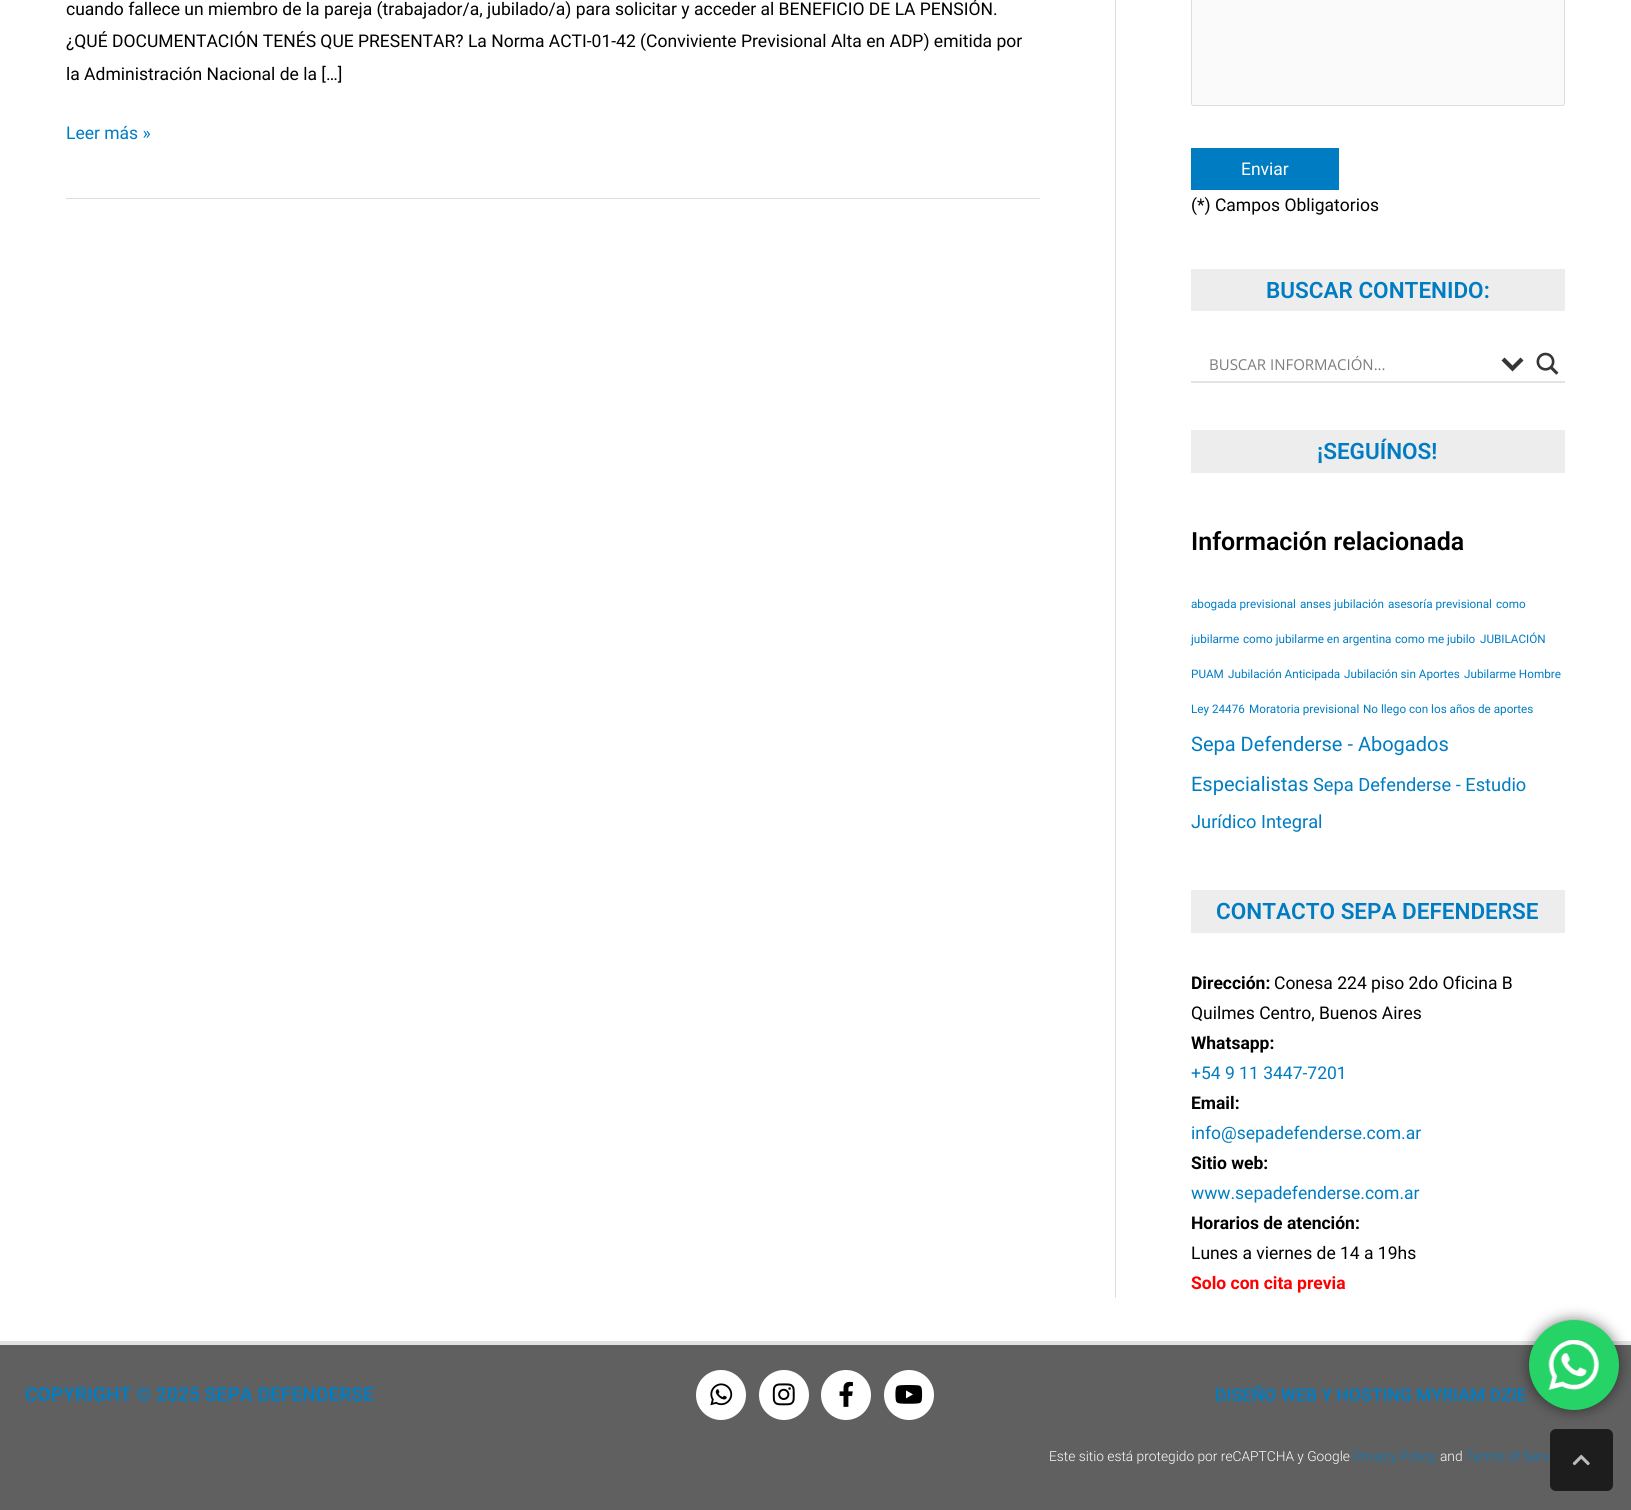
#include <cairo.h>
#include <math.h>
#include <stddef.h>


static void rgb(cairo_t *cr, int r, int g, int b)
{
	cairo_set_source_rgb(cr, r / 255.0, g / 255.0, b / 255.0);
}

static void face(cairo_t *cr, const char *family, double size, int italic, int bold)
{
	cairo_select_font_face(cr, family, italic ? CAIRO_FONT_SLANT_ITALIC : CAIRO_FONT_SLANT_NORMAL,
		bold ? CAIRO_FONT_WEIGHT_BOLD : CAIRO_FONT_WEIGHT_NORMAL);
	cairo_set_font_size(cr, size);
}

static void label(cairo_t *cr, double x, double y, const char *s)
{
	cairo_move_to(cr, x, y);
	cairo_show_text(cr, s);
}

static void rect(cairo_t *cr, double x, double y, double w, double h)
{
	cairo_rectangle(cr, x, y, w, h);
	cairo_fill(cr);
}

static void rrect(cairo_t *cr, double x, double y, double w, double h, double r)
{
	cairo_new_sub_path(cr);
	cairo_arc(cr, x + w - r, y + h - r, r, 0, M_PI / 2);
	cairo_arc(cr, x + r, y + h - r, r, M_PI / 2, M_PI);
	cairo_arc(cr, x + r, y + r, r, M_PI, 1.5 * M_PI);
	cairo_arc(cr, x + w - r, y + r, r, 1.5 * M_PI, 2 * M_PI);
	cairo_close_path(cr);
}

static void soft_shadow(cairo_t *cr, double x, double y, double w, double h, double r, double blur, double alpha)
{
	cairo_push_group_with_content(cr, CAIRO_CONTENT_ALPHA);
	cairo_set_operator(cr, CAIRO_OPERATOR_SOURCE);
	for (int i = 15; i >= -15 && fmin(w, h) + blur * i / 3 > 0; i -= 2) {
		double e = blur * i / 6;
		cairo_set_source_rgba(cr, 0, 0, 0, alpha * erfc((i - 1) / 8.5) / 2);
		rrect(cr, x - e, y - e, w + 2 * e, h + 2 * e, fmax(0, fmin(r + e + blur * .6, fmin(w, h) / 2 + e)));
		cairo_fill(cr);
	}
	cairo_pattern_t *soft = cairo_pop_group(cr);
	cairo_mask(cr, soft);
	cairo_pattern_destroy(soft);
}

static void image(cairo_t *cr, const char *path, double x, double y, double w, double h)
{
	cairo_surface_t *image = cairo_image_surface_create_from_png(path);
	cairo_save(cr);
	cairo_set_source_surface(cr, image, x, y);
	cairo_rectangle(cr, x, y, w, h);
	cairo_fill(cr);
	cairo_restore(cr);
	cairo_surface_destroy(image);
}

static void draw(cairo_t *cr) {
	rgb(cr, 255, 255, 255);
	cairo_paint(cr);
	rgb(cr, 221, 221, 221);
	rect(cr, 66, 198, 974, 1);
	face(cr, "Roboto", 17.5, 0, 0);
	rgb(cr, 0, 0, 0);
	label(cr, 66, 15, "cuando fallece un miembro de la pareja (trabajador/a, jubilado/a) para solicitar y acceder al BENEFICIO DE LA PENSIÓN.");
	label(cr, 66, 47, "¿QUÉ DOCUMENTACIÓN TENÉS QUE PRESENTAR? La Norma ACTI-01-42 (Conviviente Previsional Alta en ADP) emitida por");
	label(cr, 66, 80, "la Administración Nacional de la […]");
	rgb(cr, 0, 124, 195);
	label(cr, 66, 139, "Leer más »");
	rgb(cr, 221, 221, 221);
	rect(cr, 1115, 0, 1, 1298);
	rgb(cr, 250, 250, 250);
	rrect(cr, 1191.5, -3.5, 373, 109, 2);
	cairo_fill_preserve(cr);
	rgb(cr, 221, 221, 221);
	cairo_set_line_width(cr, 1);
	cairo_stroke(cr);
	rgb(cr, 0, 124, 195);
	rect(cr, 1191, 148, 148, 42);
	rgb(cr, 255, 255, 255);
	label(cr, 1241, 175, "Enviar");
	rgb(cr, 0, 0, 0);
	label(cr, 1191, 211, "(*) Campos Obligatorios");
	rgb(cr, 237, 237, 237);
	rect(cr, 1191, 269, 374, 42);
	face(cr, "Roboto SemiBold", 22.5, 0, 0);
	rgb(cr, 0, 124, 195);
	label(cr, 1266, 298, "BUSCAR CONTENIDO:");
	rgb(cr, 228, 228, 228);
	cairo_new_path(cr);
	cairo_move_to(cr, 1191, 348);
	cairo_line_to(cr, 1191, 383);
	cairo_line_to(cr, 1565, 383);
	cairo_line_to(cr, 1565, 381);
	cairo_line_to(cr, 1191, 381);
	cairo_close_path(cr);
	cairo_fill(cr);
	face(cr, "Open Sans", 15, 0, 0);
	rgb(cr, 125, 125, 125);
	label(cr, 1209, 370, "BUSCAR INFORMACIÓN...");
	rgb(cr, 54, 54, 54);
	cairo_new_path(cr);
	cairo_move_to(cr, 1520.5, 357.5);
	cairo_line_to(cr, 1523.5, 360.5);
	cairo_line_to(cr, 1512.5, 371.5);
	cairo_line_to(cr, 1501.5, 360.5);
	cairo_line_to(cr, 1504.5, 357.5);
	cairo_line_to(cr, 1512.5, 365.5);
	cairo_close_path(cr);
	cairo_fill(cr);
	image(cr, "image0.png", 1536, 352, 23, 23);
	rgb(cr, 237, 237, 237);
	rect(cr, 1191, 430, 374, 43);
	face(cr, "Roboto SemiBold", 22.5, 0, 0);
	rgb(cr, 0, 124, 195);
	label(cr, 1317, 459, "¡SEGUÍNOS!");
	face(cr, "Roboto SemiBold", 25, 0, 0);
	rgb(cr, 0, 0, 0);
	label(cr, 1191, 550, "Información relacionada");
	face(cr, "Roboto", 11.7, 0, 0);
	rgb(cr, 0, 124, 195);
	label(cr, 1191, 608, "abogada previsional");
	label(cr, 1300, 608, "anses jubilación");
	label(cr, 1388, 608, "asesoría previsional");
	label(cr, 1496, 608, "como");
	label(cr, 1191, 643, "jubilarme");
	label(cr, 1243, 643, "como jubilarme en argentina");
	label(cr, 1395, 643, "como me jubilo");
	label(cr, 1480, 643, "JUBILACIÓN");
	label(cr, 1191, 678, "PUAM");
	label(cr, 1228, 678, "Jubilación Anticipada");
	label(cr, 1344, 678, "Jubilación sin Aportes");
	label(cr, 1464, 678, "Jubilarme Hombre");
	label(cr, 1191, 713, "Ley 24476");
	label(cr, 1249, 713, "Moratoria previsional");
	label(cr, 1363, 713, "No llego con los años de aportes");
	face(cr, "Roboto", 20, 0, 0);
	label(cr, 1191, 751, "Sepa Defenderse - Abogados");
	label(cr, 1191, 791, "Especialistas");
	face(cr, "Roboto", 18.25, 0, 0);
	label(cr, 1313, 791, "Sepa Defenderse - Estudio");
	label(cr, 1191, 828, "Jurídico Integral");
	rgb(cr, 237, 237, 237);
	rect(cr, 1191, 890, 374, 43);
	face(cr, "Roboto SemiBold", 22.5, 0, 0);
	rgb(cr, 0, 124, 195);
	label(cr, 1216, 919, "CONTACTO SEPA DEFENDERSE");
	face(cr, "Roboto", 17.5, 0, 1);
	rgb(cr, 0, 0, 0);
	label(cr, 1191, 989, "Dirección:");
	face(cr, "Roboto", 17.5, 0, 0);
	label(cr, 1274, 989, "Conesa 224 piso 2do Oficina B");
	label(cr, 1191, 1019, "Quilmes Centro, Buenos Aires");
	face(cr, "Roboto", 17.5, 0, 1);
	label(cr, 1191, 1049, "Whatsapp:");
	face(cr, "Roboto", 17.5, 0, 0);
	rgb(cr, 0, 124, 195);
	label(cr, 1191, 1079, "+54 9 11 3447-7201");
	face(cr, "Roboto", 17.5, 0, 1);
	rgb(cr, 0, 0, 0);
	label(cr, 1191, 1109, "Email:");
	face(cr, "Roboto", 17.5, 0, 0);
	rgb(cr, 0, 124, 195);
	label(cr, 1191, 1139, "info@sepadefenderse.com.ar");
	face(cr, "Roboto", 17.5, 0, 1);
	rgb(cr, 0, 0, 0);
	label(cr, 1191, 1169, "Sitio web:");
	face(cr, "Roboto", 17.5, 0, 0);
	rgb(cr, 0, 124, 195);
	label(cr, 1191, 1199, "www.sepadefenderse.com.ar");
	face(cr, "Roboto", 17.5, 0, 1);
	rgb(cr, 0, 0, 0);
	label(cr, 1191, 1229, "Horarios de atención:");
	face(cr, "Roboto", 17.5, 0, 0);
	label(cr, 1191, 1259, "Lunes a viernes de 14 a 19hs");
	face(cr, "Roboto", 17.5, 0, 1);
	rgb(cr, 255, 0, 0);
	label(cr, 1191, 1289, "Solo con cita previa");
	rgb(cr, 96, 96, 96);
	rect(cr, 0, 1345, 1631, 165);
	rgb(cr, 227, 227, 227);
	rect(cr, 0, 1341, 1631, 4);
	face(cr, "Roboto SemiBold", 19.25, 0, 0);
	rgb(cr, 0, 124, 195);
	label(cr, 25, 1401, "COPYRIGHT © 2025 SEPA DEFENDERSE");
	rgb(cr, 255, 255, 255);
	cairo_new_path(cr);
	cairo_arc(cr, 721, 1395, 25, 0, 2 * M_PI);
	cairo_fill(cr);
	image(cr, "image1.png", 710, 1383, 23, 23);
	cairo_arc(cr, 784, 1395, 25, 0, 2 * M_PI);
	cairo_fill(cr);
	image(cr, "image2.png", 772, 1383, 23, 23);
	cairo_arc(cr, 846, 1395, 25, 0, 2 * M_PI);
	cairo_fill(cr);
	image(cr, "image3.png", 839, 1381, 14, 26);
	cairo_arc(cr, 909, 1395, 25, 0, 2 * M_PI);
	cairo_fill(cr);
	image(cr, "image4.png", 895, 1385, 28, 19);
	face(cr, "Roboto SemiBold", 17.5, 0, 0);
	rgb(cr, 0, 124, 195);
	label(cr, 1215, 1401, "DISEÑO WEB Y HOSTING MYRIAM DZIE");
	face(cr, "Roboto Light", 13.75, 0, 0);
	rgb(cr, 255, 255, 255);
	label(cr, 1049, 1461, "Este sitio está protegido por reCAPTCHA y Google");
	rgb(cr, 0, 124, 195);
	label(cr, 1353, 1461, "Privacy Policy");
	rgb(cr, 255, 255, 255);
	label(cr, 1440, 1461, "and");
	rgb(cr, 0, 124, 195);
	label(cr, 1465, 1461, "Terms of Serv");
	cairo_set_source_rgba(cr, 0, 0, 0, 0.7);
	rrect(cr, 1550, 1429, 63, 62, 6);
	cairo_fill(cr);
	rgb(cr, 0, 0, 0);
	soft_shadow(cr, 1529, 1320, 90, 90, 45, 7, 0.5);
	rgb(cr, 37, 211, 102);
	cairo_arc(cr, 1574, 1365, 45, 0, 2 * M_PI);
	cairo_fill(cr);
	image(cr, "image5.png", 1548, 1340, 51, 50);
	image(cr, "image6.png", 1572, 1454, 18, 12);
}

int main(void) {
	cairo_surface_t *surface = cairo_image_surface_create(CAIRO_FORMAT_RGB24, 1631, 1510);
	cairo_t *cr = cairo_create(surface);
	cairo_font_options_t *options = cairo_font_options_create();
	cairo_font_options_set_hint_metrics(options, CAIRO_HINT_METRICS_OFF);
	cairo_font_options_set_hint_style(options, CAIRO_HINT_STYLE_NONE);
	cairo_set_font_options(cr, options);
	cairo_set_miter_limit(cr, 4);
	draw(cr);
	cairo_surface_write_to_png(surface, "render.png");
	cairo_font_options_destroy(options);
	cairo_destroy(cr);
	cairo_surface_destroy(surface);
	return 0;
}
